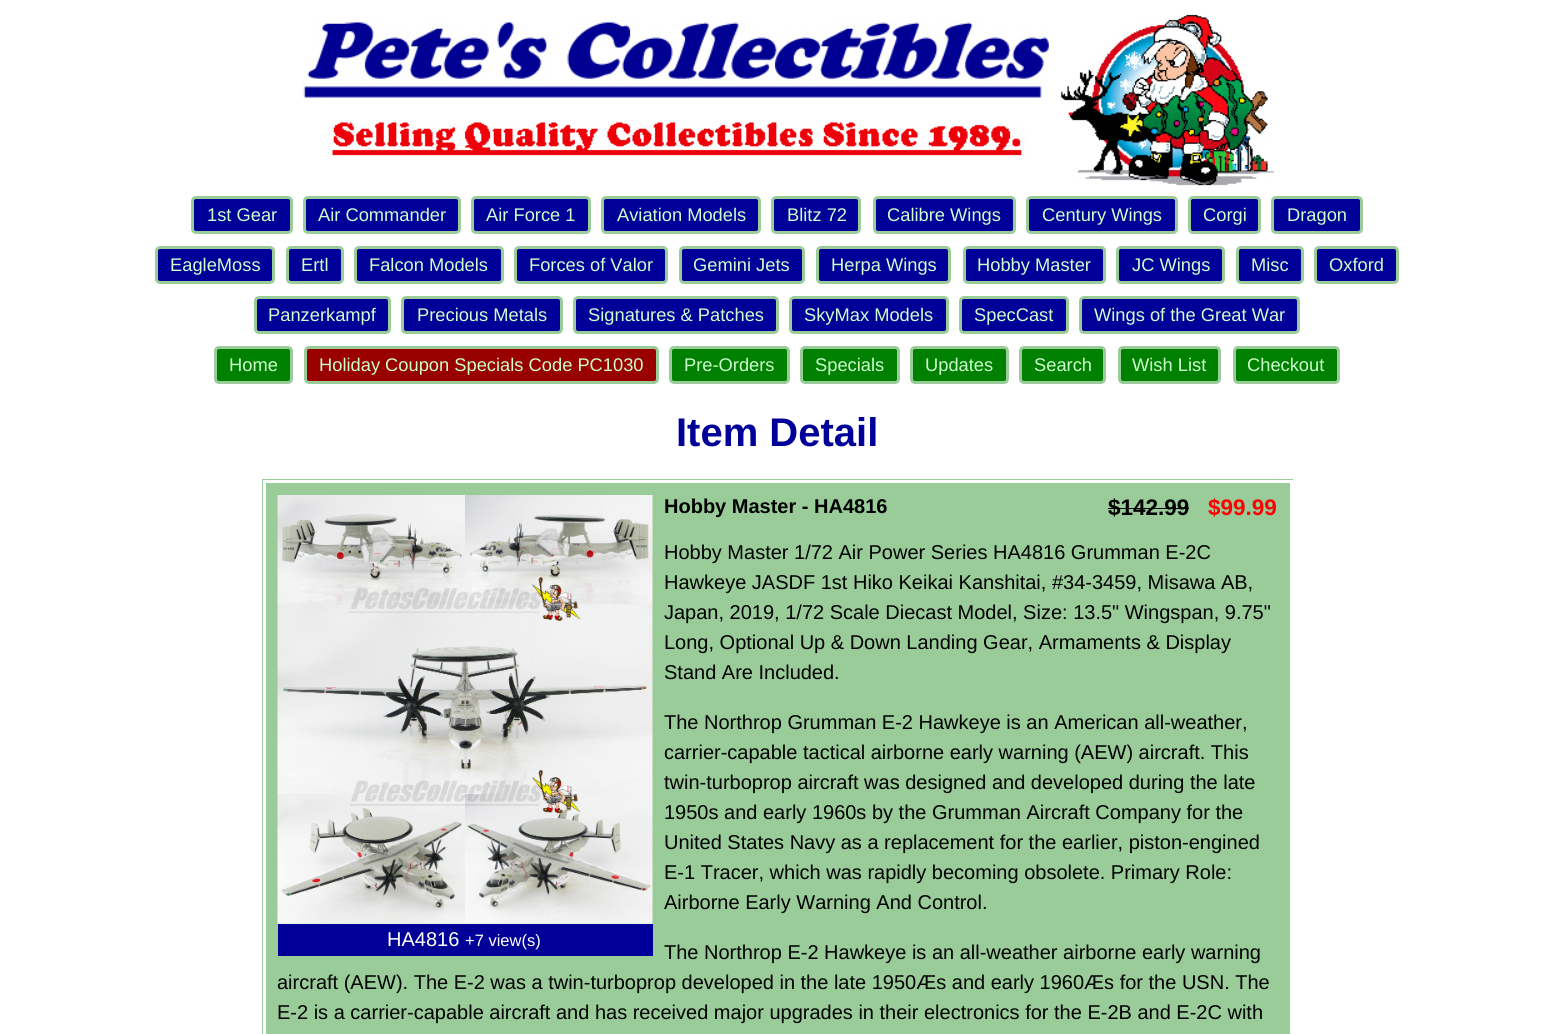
#include <cairo.h>
#include <math.h>
#include <stddef.h>


static void rgb(cairo_t *cr, int r, int g, int b)
{
	cairo_set_source_rgb(cr, r / 255.0, g / 255.0, b / 255.0);
}

static void face(cairo_t *cr, const char *family, double size, int italic, int bold)
{
	cairo_select_font_face(cr, family, italic ? CAIRO_FONT_SLANT_ITALIC : CAIRO_FONT_SLANT_NORMAL,
		bold ? CAIRO_FONT_WEIGHT_BOLD : CAIRO_FONT_WEIGHT_NORMAL);
	cairo_set_font_size(cr, size);
}

static void label(cairo_t *cr, double x, double y, const char *s)
{
	cairo_move_to(cr, x, y);
	cairo_show_text(cr, s);
}

static void rect(cairo_t *cr, double x, double y, double w, double h)
{
	cairo_rectangle(cr, x, y, w, h);
	cairo_fill(cr);
}

static void rrect(cairo_t *cr, double x, double y, double w, double h, double r)
{
	cairo_new_sub_path(cr);
	cairo_arc(cr, x + w - r, y + h - r, r, 0, M_PI / 2);
	cairo_arc(cr, x + r, y + h - r, r, M_PI / 2, M_PI);
	cairo_arc(cr, x + r, y + r, r, M_PI, 1.5 * M_PI);
	cairo_arc(cr, x + w - r, y + r, r, 1.5 * M_PI, 2 * M_PI);
	cairo_close_path(cr);
}

static void image(cairo_t *cr, const char *path, double x, double y, double w, double h)
{
	cairo_surface_t *image = cairo_image_surface_create_from_png(path);
	cairo_save(cr);
	cairo_set_source_surface(cr, image, x, y);
	cairo_rectangle(cr, x, y, w, h);
	cairo_fill(cr);
	cairo_restore(cr);
	cairo_surface_destroy(image);
}

static void draw(cairo_t *cr) {
	rgb(cr, 255, 255, 255);
	cairo_paint(cr);
	image(cr, "image0.png", 303, 14, 971, 172);
	rgb(cr, 0, 0, 153);
	rrect(cr, 192.5, 197.5, 99, 35, 3.5);
	cairo_fill_preserve(cr);
	rgb(cr, 153, 204, 153);
	cairo_set_line_width(cr, 3);
	cairo_stroke(cr);
	face(cr, "Liberation Sans", 18.3, 0, 0);
	rgb(cr, 204, 255, 204);
	label(cr, 207, 221, "1st Gear");
	rgb(cr, 0, 0, 153);
	rrect(cr, 304.5, 197.5, 155, 35, 3.5);
	cairo_fill_preserve(cr);
	rgb(cr, 153, 204, 153);
	cairo_stroke(cr);
	rgb(cr, 204, 255, 204);
	label(cr, 318, 221, "Air Commander");
	rgb(cr, 0, 0, 153);
	rrect(cr, 472.5, 197.5, 117, 35, 3.5);
	cairo_fill_preserve(cr);
	rgb(cr, 153, 204, 153);
	cairo_stroke(cr);
	rgb(cr, 204, 255, 204);
	label(cr, 486, 221, "Air Force 1");
	rgb(cr, 0, 0, 153);
	rrect(cr, 602.5, 197.5, 157, 35, 3.5);
	cairo_fill_preserve(cr);
	rgb(cr, 153, 204, 153);
	cairo_stroke(cr);
	rgb(cr, 204, 255, 204);
	label(cr, 617, 221, "Aviation Models");
	rgb(cr, 0, 0, 153);
	rrect(cr, 772.5, 197.5, 87, 35, 3.5);
	cairo_fill_preserve(cr);
	rgb(cr, 153, 204, 153);
	cairo_stroke(cr);
	rgb(cr, 204, 255, 204);
	label(cr, 787, 221, "Blitz 72");
	rgb(cr, 0, 0, 153);
	rrect(cr, 874.5, 197.5, 140, 35, 3.5);
	cairo_fill_preserve(cr);
	rgb(cr, 153, 204, 153);
	cairo_stroke(cr);
	rgb(cr, 204, 255, 204);
	label(cr, 887, 221, "Calibre Wings");
	rgb(cr, 0, 0, 153);
	rrect(cr, 1027.5, 197.5, 149, 35, 3.5);
	cairo_fill_preserve(cr);
	rgb(cr, 153, 204, 153);
	cairo_stroke(cr);
	rgb(cr, 204, 255, 204);
	label(cr, 1042, 221, "Century Wings");
	rgb(cr, 0, 0, 153);
	rrect(cr, 1189.5, 197.5, 70, 35, 3.5);
	cairo_fill_preserve(cr);
	rgb(cr, 153, 204, 153);
	cairo_stroke(cr);
	rgb(cr, 204, 255, 204);
	label(cr, 1203, 221, "Corgi");
	rgb(cr, 0, 0, 153);
	rrect(cr, 1272.5, 197.5, 89, 35, 3.5);
	cairo_fill_preserve(cr);
	rgb(cr, 153, 204, 153);
	cairo_stroke(cr);
	rgb(cr, 204, 255, 204);
	label(cr, 1287, 221, "Dragon");
	rgb(cr, 0, 0, 153);
	rrect(cr, 156.5, 247.5, 117, 35, 3.5);
	cairo_fill_preserve(cr);
	rgb(cr, 153, 204, 153);
	cairo_stroke(cr);
	rgb(cr, 204, 255, 204);
	label(cr, 170, 271, "EagleMoss");
	rgb(cr, 0, 0, 153);
	rrect(cr, 287.5, 247.5, 55, 35, 3.5);
	cairo_fill_preserve(cr);
	rgb(cr, 153, 204, 153);
	cairo_stroke(cr);
	rgb(cr, 204, 255, 204);
	label(cr, 301, 271, "Ertl");
	rgb(cr, 0, 0, 153);
	rrect(cr, 355.5, 247.5, 147, 35, 3.5);
	cairo_fill_preserve(cr);
	rgb(cr, 153, 204, 153);
	cairo_stroke(cr);
	rgb(cr, 204, 255, 204);
	label(cr, 369, 271, "Falcon Models");
	rgb(cr, 0, 0, 153);
	rrect(cr, 515.5, 247.5, 151, 35, 3.5);
	cairo_fill_preserve(cr);
	rgb(cr, 153, 204, 153);
	cairo_stroke(cr);
	rgb(cr, 204, 255, 204);
	label(cr, 529, 271, "Forces of Valor");
	rgb(cr, 0, 0, 153);
	rrect(cr, 680.5, 247.5, 123, 35, 3.5);
	cairo_fill_preserve(cr);
	rgb(cr, 153, 204, 153);
	cairo_stroke(cr);
	rgb(cr, 204, 255, 204);
	label(cr, 693, 271, "Gemini Jets");
	rgb(cr, 0, 0, 153);
	rrect(cr, 817.5, 247.5, 132, 35, 3.5);
	cairo_fill_preserve(cr);
	rgb(cr, 153, 204, 153);
	cairo_stroke(cr);
	rgb(cr, 204, 255, 204);
	label(cr, 831, 271, "Herpa Wings");
	rgb(cr, 0, 0, 153);
	rrect(cr, 964.5, 247.5, 140, 35, 3.5);
	cairo_fill_preserve(cr);
	rgb(cr, 153, 204, 153);
	cairo_stroke(cr);
	rgb(cr, 204, 255, 204);
	label(cr, 977, 271, "Hobby Master");
	rgb(cr, 0, 0, 153);
	rrect(cr, 1117.5, 247.5, 106, 35, 3.5);
	cairo_fill_preserve(cr);
	rgb(cr, 153, 204, 153);
	cairo_stroke(cr);
	rgb(cr, 204, 255, 204);
	label(cr, 1132, 271, "JC Wings");
	rgb(cr, 0, 0, 153);
	rrect(cr, 1237.5, 247.5, 65, 35, 3.5);
	cairo_fill_preserve(cr);
	rgb(cr, 153, 204, 153);
	cairo_stroke(cr);
	rgb(cr, 204, 255, 204);
	label(cr, 1251, 271, "Misc");
	rgb(cr, 0, 0, 153);
	rrect(cr, 1315.5, 247.5, 82, 35, 3.5);
	cairo_fill_preserve(cr);
	rgb(cr, 153, 204, 153);
	cairo_stroke(cr);
	rgb(cr, 204, 255, 204);
	label(cr, 1329, 271, "Oxford");
	rgb(cr, 0, 0, 153);
	rrect(cr, 255.5, 297.5, 134, 35, 3.5);
	cairo_fill_preserve(cr);
	rgb(cr, 153, 204, 153);
	cairo_stroke(cr);
	rgb(cr, 204, 255, 204);
	label(cr, 268, 321, "Panzerkampf");
	rgb(cr, 0, 0, 153);
	rrect(cr, 402.5, 297.5, 159, 35, 3.5);
	cairo_fill_preserve(cr);
	rgb(cr, 153, 204, 153);
	cairo_stroke(cr);
	rgb(cr, 204, 255, 204);
	label(cr, 417, 321, "Precious Metals");
	rgb(cr, 0, 0, 153);
	rrect(cr, 574.5, 297.5, 203, 35, 3.5);
	cairo_fill_preserve(cr);
	rgb(cr, 153, 204, 153);
	cairo_stroke(cr);
	rgb(cr, 204, 255, 204);
	label(cr, 588, 321, "Signatures & Patches");
	rgb(cr, 0, 0, 153);
	rrect(cr, 790.5, 297.5, 157, 35, 3.5);
	cairo_fill_preserve(cr);
	rgb(cr, 153, 204, 153);
	cairo_stroke(cr);
	rgb(cr, 204, 255, 204);
	label(cr, 804, 321, "SkyMax Models");
	rgb(cr, 0, 0, 153);
	rrect(cr, 960.5, 297.5, 107, 35, 3.5);
	cairo_fill_preserve(cr);
	rgb(cr, 153, 204, 153);
	cairo_stroke(cr);
	rgb(cr, 204, 255, 204);
	label(cr, 974, 321, "SpecCast");
	rgb(cr, 0, 0, 153);
	rrect(cr, 1080.5, 297.5, 218, 35, 3.5);
	cairo_fill_preserve(cr);
	rgb(cr, 153, 204, 153);
	cairo_stroke(cr);
	rgb(cr, 204, 255, 204);
	label(cr, 1094, 321, "Wings of the Great War");
	rgb(cr, 0, 128, 0);
	rrect(cr, 215.5, 347.5, 76, 35, 3.5);
	cairo_fill_preserve(cr);
	rgb(cr, 153, 204, 153);
	cairo_stroke(cr);
	rgb(cr, 204, 255, 204);
	label(cr, 229, 371, "Home");
	rgb(cr, 153, 0, 0);
	rrect(cr, 305.5, 347.5, 352, 35, 3.5);
	cairo_fill_preserve(cr);
	rgb(cr, 153, 204, 153);
	cairo_stroke(cr);
	rgb(cr, 204, 255, 204);
	label(cr, 319, 371, "Holiday Coupon Specials Code PC1030");
	rgb(cr, 0, 128, 0);
	rrect(cr, 670.5, 347.5, 118, 35, 3.5);
	cairo_fill_preserve(cr);
	rgb(cr, 153, 204, 153);
	cairo_stroke(cr);
	rgb(cr, 204, 255, 204);
	label(cr, 684, 371, "Pre-Orders");
	rgb(cr, 0, 128, 0);
	rrect(cr, 801.5, 347.5, 97, 35, 3.5);
	cairo_fill_preserve(cr);
	rgb(cr, 153, 204, 153);
	cairo_stroke(cr);
	rgb(cr, 204, 255, 204);
	label(cr, 815, 371, "Specials");
	rgb(cr, 0, 128, 0);
	rrect(cr, 911.5, 347.5, 96, 35, 3.5);
	cairo_fill_preserve(cr);
	rgb(cr, 153, 204, 153);
	cairo_stroke(cr);
	rgb(cr, 204, 255, 204);
	label(cr, 925, 371, "Updates");
	rgb(cr, 0, 128, 0);
	rrect(cr, 1020.5, 347.5, 84, 35, 3.5);
	cairo_fill_preserve(cr);
	rgb(cr, 153, 204, 153);
	cairo_stroke(cr);
	rgb(cr, 204, 255, 204);
	label(cr, 1034, 371, "Search");
	rgb(cr, 0, 128, 0);
	rrect(cr, 1119.5, 347.5, 100, 35, 3.5);
	cairo_fill_preserve(cr);
	rgb(cr, 153, 204, 153);
	cairo_stroke(cr);
	rgb(cr, 204, 255, 204);
	label(cr, 1132, 371, "Wish List");
	rgb(cr, 0, 128, 0);
	rrect(cr, 1234.5, 347.5, 104, 35, 3.5);
	cairo_fill_preserve(cr);
	rgb(cr, 153, 204, 153);
	cairo_stroke(cr);
	rgb(cr, 204, 255, 204);
	label(cr, 1247, 371, "Checkout");
	face(cr, "Liberation Sans", 40, 0, 1);
	rgb(cr, 0, 0, 153);
	label(cr, 676, 446, "Item Detail");
	rgb(cr, 153, 204, 153);
	rect(cr, 262, 479, 1031, 555);
	cairo_rectangle(cr, 264.5, 481.5, 1027, 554);
	rgb(cr, 255, 255, 255);
	cairo_stroke(cr);
	face(cr, "Liberation Sans", 20, 0, 1);
	rgb(cr, 0, 0, 0);
	label(cr, 664, 513, "Hobby Master - HA4816");
	face(cr, "Liberation Sans", 22.5, 0, 1);
	label(cr, 1108, 515, "$142.99");
	rect(cr, 1108, 508, 81, 1);
	rgb(cr, 255, 0, 0);
	label(cr, 1208, 515, "$99.99");
	face(cr, "Liberation Sans", 20, 0, 0);
	rgb(cr, 0, 0, 0);
	label(cr, 664, 559, "Hobby Master 1/72 Air Power Series HA4816 Grumman E-2C");
	label(cr, 664, 589, "Hawkeye JASDF 1st Hiko Keikai Kanshitai, #34-3459, Misawa AB,");
	label(cr, 664, 619, "Japan, 2019, 1/72 Scale Diecast Model, Size: 13.5\" Wingspan, 9.75\"");
	label(cr, 664, 649, "Long, Optional Up & Down Landing Gear, Armaments & Display");
	label(cr, 664, 679, "Stand Are Included.");
	label(cr, 664, 729, "The Northrop Grumman E-2 Hawkeye is an American all-weather,");
	label(cr, 664, 759, "carrier-capable tactical airborne early warning (AEW) aircraft. This");
	label(cr, 664, 789, "twin-turboprop aircraft was designed and developed during the late");
	label(cr, 664, 819, "1950s and early 1960s by the Grumman Aircraft Company for the");
	label(cr, 664, 849, "United States Navy as a replacement for the earlier, piston-engined");
	label(cr, 664, 879, "E-1 Tracer, which was rapidly becoming obsolete. Primary Role:");
	label(cr, 664, 909, "Airborne Early Warning And Control.");
	label(cr, 664, 959, "The Northrop E-2 Hawkeye is an all-weather airborne early warning");
	label(cr, 277, 989, "aircraft (AEW). The E-2 was a twin-turboprop developed in the late 1950Æs and early 1960Æs for the USN. The");
	label(cr, 277, 1019, "E-2 is a carrier-capable aircraft and has received major upgrades in their electronics for the E-2B and E-2C with");
	image(cr, "image1.png", 277, 495, 376, 429);
	rgb(cr, 0, 0, 153);
	rect(cr, 278, 924, 375, 32);
	rgb(cr, 255, 255, 255);
	label(cr, 387, 946, "HA4816");
	face(cr, "Liberation Sans", 16.5, 0, 0);
	label(cr, 465, 946, "+7 view(s)");
}

int main(void) {
	cairo_surface_t *surface = cairo_image_surface_create(CAIRO_FORMAT_RGB24, 1553, 1034);
	cairo_t *cr = cairo_create(surface);
	cairo_font_options_t *options = cairo_font_options_create();
	cairo_font_options_set_hint_metrics(options, CAIRO_HINT_METRICS_OFF);
	cairo_font_options_set_hint_style(options, CAIRO_HINT_STYLE_NONE);
	cairo_set_font_options(cr, options);
	cairo_set_miter_limit(cr, 4);
	draw(cr);
	cairo_surface_write_to_png(surface, "render.png");
	cairo_font_options_destroy(options);
	cairo_destroy(cr);
	cairo_surface_destroy(surface);
	return 0;
}
